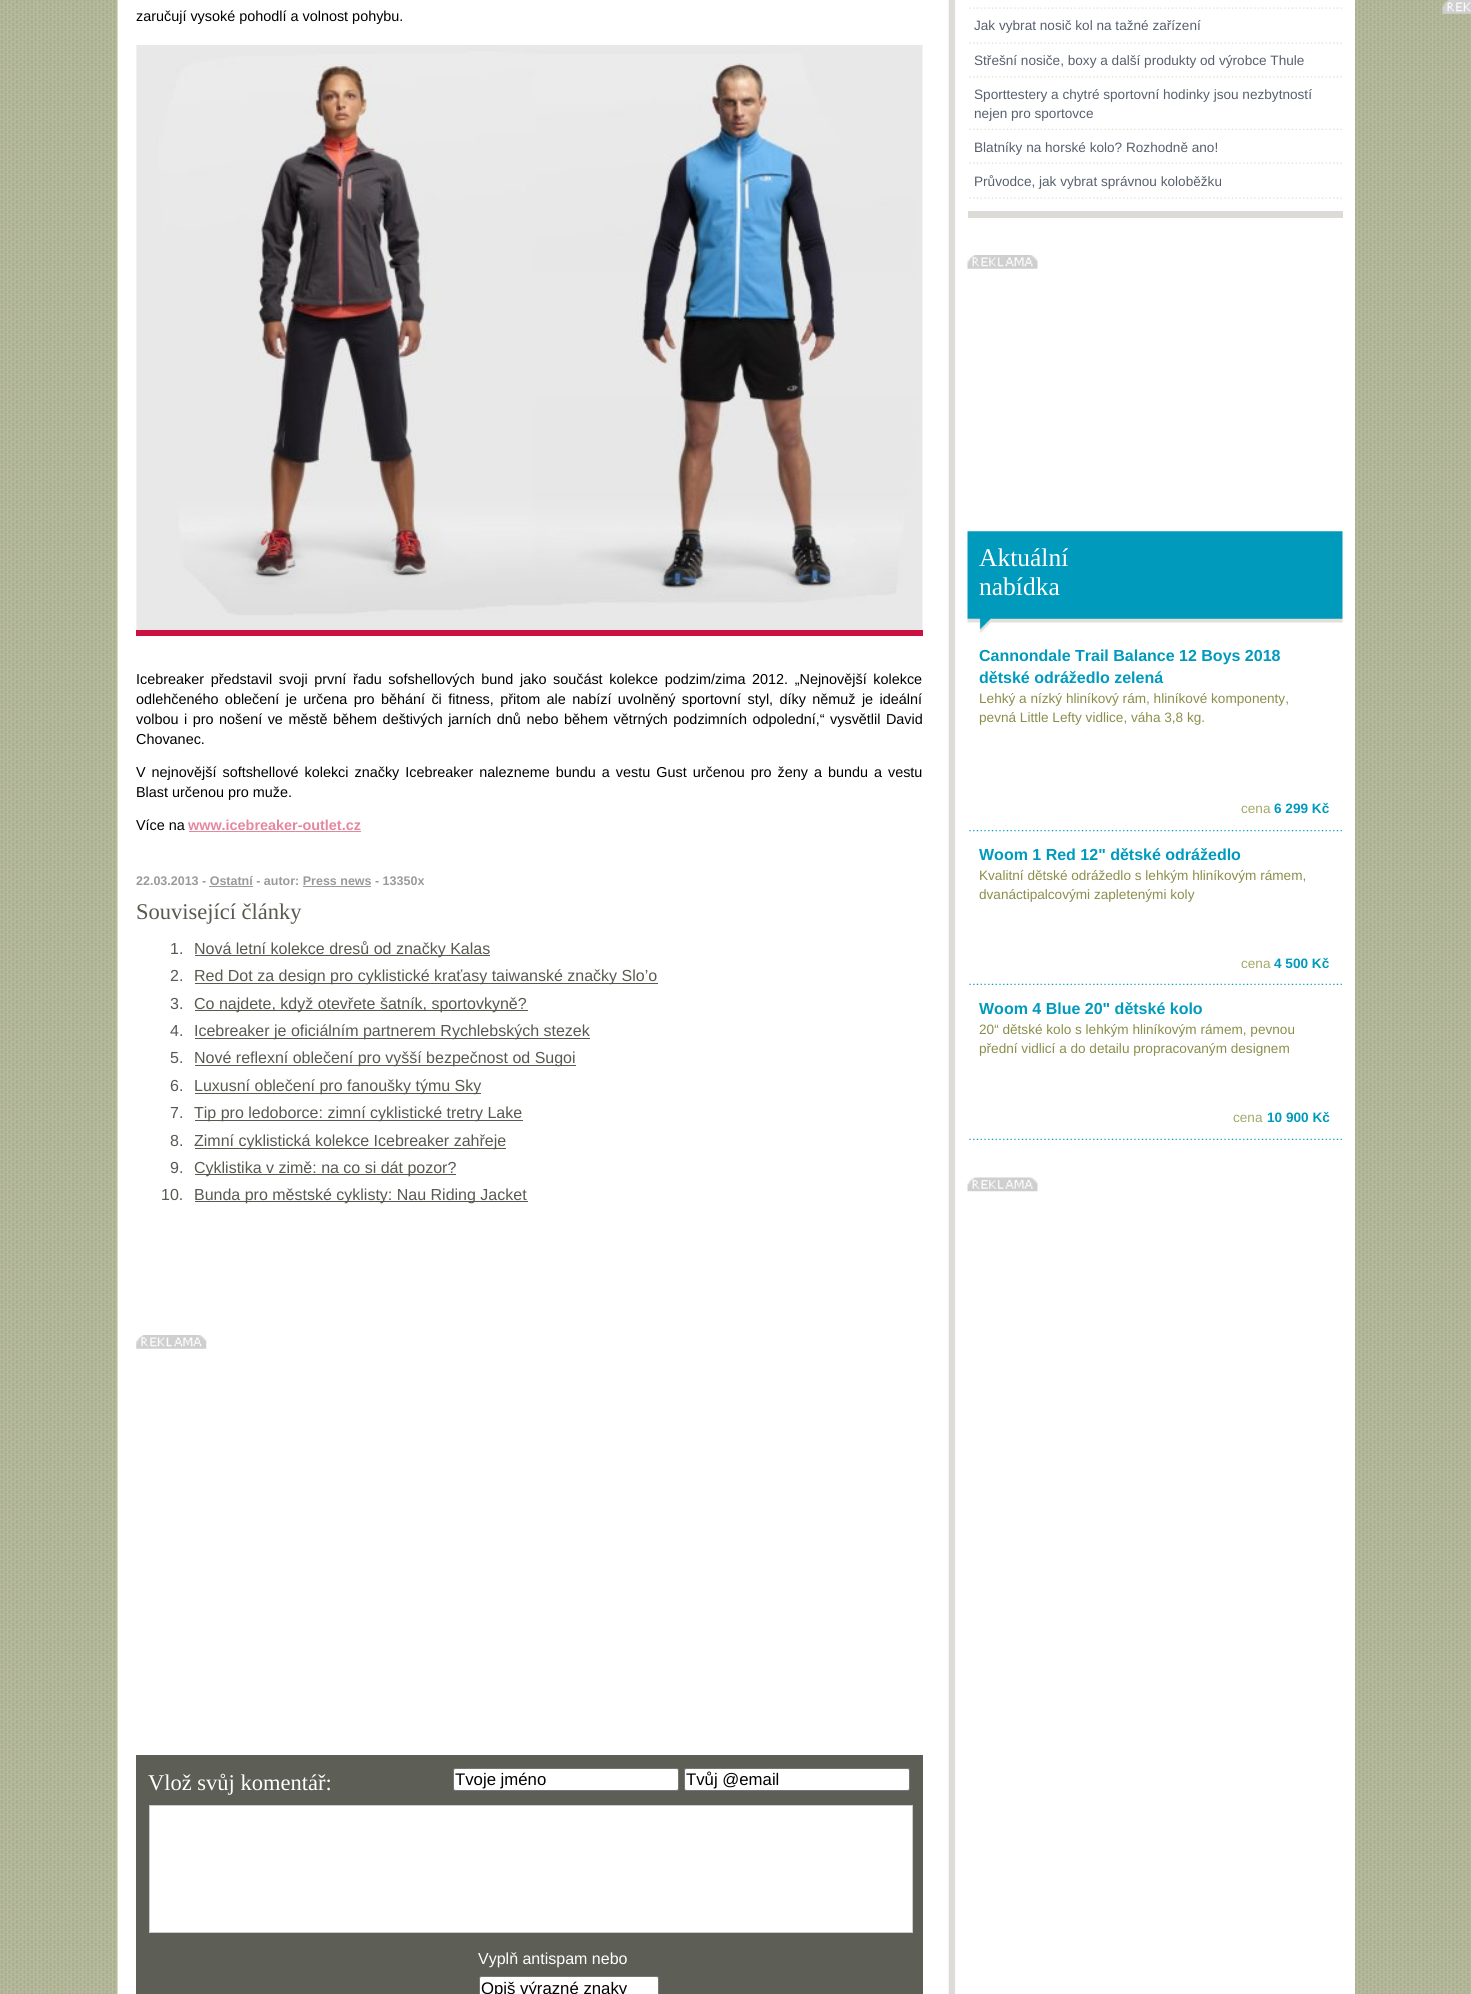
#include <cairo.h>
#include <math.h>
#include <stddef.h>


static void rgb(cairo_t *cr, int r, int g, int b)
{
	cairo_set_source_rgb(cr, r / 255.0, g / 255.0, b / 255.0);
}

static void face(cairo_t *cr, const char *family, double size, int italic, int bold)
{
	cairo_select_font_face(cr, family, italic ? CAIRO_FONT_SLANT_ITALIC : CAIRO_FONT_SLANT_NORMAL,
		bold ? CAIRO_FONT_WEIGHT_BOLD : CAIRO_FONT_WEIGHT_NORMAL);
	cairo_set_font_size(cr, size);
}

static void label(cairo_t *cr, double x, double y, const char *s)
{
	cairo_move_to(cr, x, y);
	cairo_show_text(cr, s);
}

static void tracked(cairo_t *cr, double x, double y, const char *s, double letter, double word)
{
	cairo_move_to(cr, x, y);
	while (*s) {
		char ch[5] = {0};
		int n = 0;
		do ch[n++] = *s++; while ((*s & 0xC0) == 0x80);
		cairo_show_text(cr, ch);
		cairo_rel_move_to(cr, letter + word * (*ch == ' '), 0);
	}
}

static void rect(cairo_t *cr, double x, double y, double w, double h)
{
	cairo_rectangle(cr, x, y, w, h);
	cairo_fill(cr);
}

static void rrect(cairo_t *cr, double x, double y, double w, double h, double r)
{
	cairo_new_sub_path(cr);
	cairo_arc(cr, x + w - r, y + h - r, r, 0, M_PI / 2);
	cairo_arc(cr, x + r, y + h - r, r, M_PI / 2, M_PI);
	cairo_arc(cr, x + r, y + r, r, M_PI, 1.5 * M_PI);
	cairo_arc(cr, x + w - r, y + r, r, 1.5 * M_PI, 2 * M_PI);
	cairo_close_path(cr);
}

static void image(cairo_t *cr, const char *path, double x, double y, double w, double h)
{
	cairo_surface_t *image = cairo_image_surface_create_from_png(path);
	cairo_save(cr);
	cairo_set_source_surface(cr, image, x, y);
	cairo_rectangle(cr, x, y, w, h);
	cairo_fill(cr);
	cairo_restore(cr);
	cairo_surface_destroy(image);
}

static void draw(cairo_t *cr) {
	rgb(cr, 255, 255, 255);
	cairo_paint(cr);
	image(cr, "image0.png", 0, 0, 1471, 1994);
	image(cr, "image1.png", 1442, 0, 29, 14);
	rgb(cr, 255, 255, 255);
	rect(cr, 956, 0, 399, 1994);
	image(cr, "image2.png", 117, 0, 839, 1994);
	face(cr, "Liberation Sans", 14.4, 0, 0);
	rgb(cr, 0, 0, 0);
	label(cr, 136, 21, "zaručují vysoké pohodlí a volnost pohybu.");
	rgb(cr, 202, 17, 66);
	rect(cr, 136, 630, 787, 6);
	image(cr, "image3.png", 136, 45, 787, 585);
	rgb(cr, 0, 0, 0);
	tracked(cr, 136, 684, "Icebreaker představil svoji první řadu sofshellových bund jako součást kolekce podzim/zima 2012. „Nejnovější kolekce", 0, 2.6);
	tracked(cr, 136, 704, "odlehčeného oblečení je určena pro běhání či fitness, přitom ale nabízí uvolněný sportovní styl, díky němuž je ideální", 0, 2.4);
	tracked(cr, 136, 724, "volbou i pro nošení ve městě během deštivých jarních dnů nebo během větrných podzimních odpolední,“ vysvětlil David", 0, 1.5);
	label(cr, 136, 744, "Chovanec.");
	tracked(cr, 136, 777, "V nejnovější softshellové kolekci značky Icebreaker nalezneme bundu a vestu Gust určenou pro ženy a bundu a vestu", 0, 2);
	label(cr, 136, 797, "Blast určenou pro muže.");
	label(cr, 136, 830, "Více na");
	face(cr, "Liberation Sans", 14.4, 0, 1);
	rgb(cr, 228, 136, 160);
	label(cr, 188, 830, "www.icebreaker-outlet.cz");
	rect(cr, 189, 831, 172, 1);
	face(cr, "Liberation Sans", 12.5, 0, 1);
	rgb(cr, 154, 154, 154);
	label(cr, 136, 885, "22.03.2013 - Ostatní - autor: Press news - 13350x");
	rect(cr, 209, 886, 44, 1);
	rect(cr, 303, 886, 68, 1);
	face(cr, "Liberation Serif", 22.5, 0, 0);
	rgb(cr, 88, 89, 81);
	label(cr, 136, 919, "Související články");
	face(cr, "Liberation Sans", 16, 0, 0);
	label(cr, 170, 954, "1.");
	rect(cr, 195, 955, 295, 1);
	label(cr, 194, 954, "Nová letní kolekce dresů od značky Kalas");
	label(cr, 170, 981, "2.");
	rect(cr, 195, 983, 463, 1);
	label(cr, 194, 981, "Red Dot za design pro cyklistické kraťasy taiwanské značky Slo’o");
	label(cr, 170, 1009, "3.");
	rect(cr, 195, 1010, 333, 1);
	label(cr, 194, 1009, "Co najdete, když otevřete šatník, sportovkyně?");
	label(cr, 170, 1036, "4.");
	rect(cr, 195, 1038, 395, 1);
	label(cr, 194, 1036, "Icebreaker je oficiálním partnerem Rychlebských stezek");
	label(cr, 170, 1063, "5.");
	rect(cr, 195, 1065, 381, 1);
	label(cr, 194, 1063, "Nové reflexní oblečení pro vyšší bezpečnost od Sugoi");
	label(cr, 170, 1091, "6.");
	rect(cr, 195, 1093, 286, 1);
	label(cr, 194, 1091, "Luxusní oblečení pro fanoušky týmu Sky");
	label(cr, 170, 1118, "7.");
	rect(cr, 195, 1120, 328, 1);
	label(cr, 194, 1118, "Tip pro ledoborce: zimní cyklistické tretry Lake");
	label(cr, 170, 1146, "8.");
	rect(cr, 195, 1148, 311, 1);
	label(cr, 194, 1146, "Zimní cyklistická kolekce Icebreaker zahřeje");
	label(cr, 170, 1173, "9.");
	rect(cr, 195, 1174, 261, 1);
	label(cr, 194, 1173, "Cyklistika v zimě: na co si dát pozor?");
	label(cr, 161, 1200, "10.");
	rect(cr, 195, 1201, 333, 1);
	label(cr, 194, 1200, "Bunda pro městské cyklisty: Nau Riding Jacket");
	image(cr, "image4.png", 136, 1335, 71, 14);
	rgb(cr, 93, 94, 86);
	rect(cr, 136, 1755, 787, 239);
	face(cr, "Liberation Serif", 22.5, 0, 0);
	rgb(cr, 255, 255, 255);
	label(cr, 148, 1790, "Vlož svůj komentář:");
	rrect(cr, 453.5, 1768.5, 225, 22, 2);
	cairo_fill_preserve(cr);
	rgb(cr, 118, 118, 118);
	cairo_set_line_width(cr, 1);
	cairo_stroke(cr);
	face(cr, "Liberation Sans", 16.75, 0, 0);
	rgb(cr, 0, 0, 0);
	label(cr, 455, 1785, "Tvoje jméno");
	rgb(cr, 255, 255, 255);
	rrect(cr, 684.5, 1768.5, 225, 22, 2);
	cairo_fill_preserve(cr);
	rgb(cr, 118, 118, 118);
	cairo_stroke(cr);
	rgb(cr, 0, 0, 0);
	label(cr, 686, 1785, "Tvůj @email");
	rgb(cr, 255, 255, 255);
	cairo_rectangle(cr, 149.5, 1805.5, 763, 127);
	cairo_fill_preserve(cr);
	rgb(cr, 204, 204, 204);
	cairo_stroke(cr);
	face(cr, "Liberation Sans", 16, 0, 0);
	rgb(cr, 255, 255, 255);
	label(cr, 478, 1964, "Vyplň antispam nebo");
	rrect(cr, 479.5, 1976.5, 179, 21, 2);
	cairo_fill_preserve(cr);
	rgb(cr, 118, 118, 118);
	cairo_stroke(cr);
	face(cr, "Liberation Sans", 16.75, 0, 0);
	rgb(cr, 0, 0, 0);
	label(cr, 481, 1994, "Opiš výrazné znaky");
	image(cr, "image5.png", 969, 7, 373, 2);
	image(cr, "image5.png", 969, 42, 373, 2);
	face(cr, "Liberation Sans", 13.6, 0, 0);
	rgb(cr, 88, 96, 110);
	label(cr, 974, 30, "Jak vybrat nosič kol na tažné zařízení");
	image(cr, "image6.png", 969, 76, 373, 2);
	label(cr, 974, 65, "Střešní nosiče, boxy a další produkty od výrobce Thule");
	image(cr, "image7.png", 969, 128, 373, 2);
	label(cr, 974, 99, "Sporttestery a chytré sportovní hodinky jsou nezbytností");
	label(cr, 974, 118, "nejen pro sportovce");
	image(cr, "image5.png", 969, 162, 373, 2);
	label(cr, 974, 152, "Blatníky na horské kolo? Rozhodně ano!");
	image(cr, "image5.png", 969, 197, 373, 2);
	label(cr, 974, 186, "Průvodce, jak vybrat správnou koloběžku");
	rgb(cr, 220, 219, 216);
	rect(cr, 968, 211, 375, 7);
	image(cr, "image8.png", 967, 255, 71, 14);
	image(cr, "image9.png", 967, 531, 376, 102);
	face(cr, "Liberation Serif", 25.5, 0, 0);
	rgb(cr, 255, 255, 255);
	label(cr, 979, 566, "Aktuální");
	label(cr, 979, 595, "nabídka");
	image(cr, "image10.png", 969, 830, 373, 2);
	face(cr, "Liberation Sans", 16, 0, 1);
	rgb(cr, 0, 154, 188);
	label(cr, 979, 661, "Cannondale Trail Balance 12 Boys 2018");
	label(cr, 979, 683, "dětské odrážedlo zelená");
	face(cr, "Liberation Sans", 13.6, 0, 0);
	rgb(cr, 139, 142, 75);
	label(cr, 979, 703, "Lehký a nízký hliníkový rám, hliníkové komponenty,");
	label(cr, 979, 722, "pevná Little Lefty vidlice, váha 3,8 kg.");
	rgb(cr, 163, 168, 107);
	label(cr, 1241, 813, "cena");
	face(cr, "Liberation Sans", 13.6, 0, 1);
	rgb(cr, 0, 154, 188);
	label(cr, 1274, 813, "6 299 Kč");
	image(cr, "image11.png", 969, 983, 373, 2);
	face(cr, "Liberation Sans", 16, 0, 1);
	label(cr, 979, 860, "Woom 1 Red 12\" dětské odrážedlo");
	face(cr, "Liberation Sans", 13.6, 0, 0);
	rgb(cr, 139, 142, 75);
	label(cr, 979, 880, "Kvalitní dětské odrážedlo s lehkým hliníkovým rámem,");
	label(cr, 979, 899, "dvanáctipalcovými zapletenými koly");
	rgb(cr, 163, 168, 107);
	label(cr, 1241, 968, "cena");
	face(cr, "Liberation Sans", 13.6, 0, 1);
	rgb(cr, 0, 154, 188);
	label(cr, 1274, 968, "4 500 Kč");
	image(cr, "image11.png", 969, 1138, 373, 2);
	face(cr, "Liberation Sans", 16, 0, 1);
	label(cr, 979, 1014, "Woom 4 Blue 20\" dětské kolo");
	face(cr, "Liberation Sans", 13.6, 0, 0);
	rgb(cr, 139, 142, 75);
	label(cr, 979, 1034, "20“ dětské kolo s lehkým hliníkovým rámem, pevnou");
	label(cr, 979, 1053, "přední vidlicí a do detailu propracovaným designem");
	rgb(cr, 163, 168, 107);
	label(cr, 1233, 1122, "cena");
	face(cr, "Liberation Sans", 13.6, 0, 1);
	rgb(cr, 0, 154, 188);
	label(cr, 1267, 1122, "10 900 Kč");
	image(cr, "image12.png", 967, 1177, 71, 15);
}

int main(void) {
	cairo_surface_t *surface = cairo_image_surface_create(CAIRO_FORMAT_RGB24, 1471, 1994);
	cairo_t *cr = cairo_create(surface);
	cairo_font_options_t *options = cairo_font_options_create();
	cairo_font_options_set_hint_metrics(options, CAIRO_HINT_METRICS_OFF);
	cairo_font_options_set_hint_style(options, CAIRO_HINT_STYLE_NONE);
	cairo_set_font_options(cr, options);
	cairo_set_miter_limit(cr, 4);
	draw(cr);
	cairo_surface_write_to_png(surface, "render.png");
	cairo_font_options_destroy(options);
	cairo_destroy(cr);
	cairo_surface_destroy(surface);
	return 0;
}
